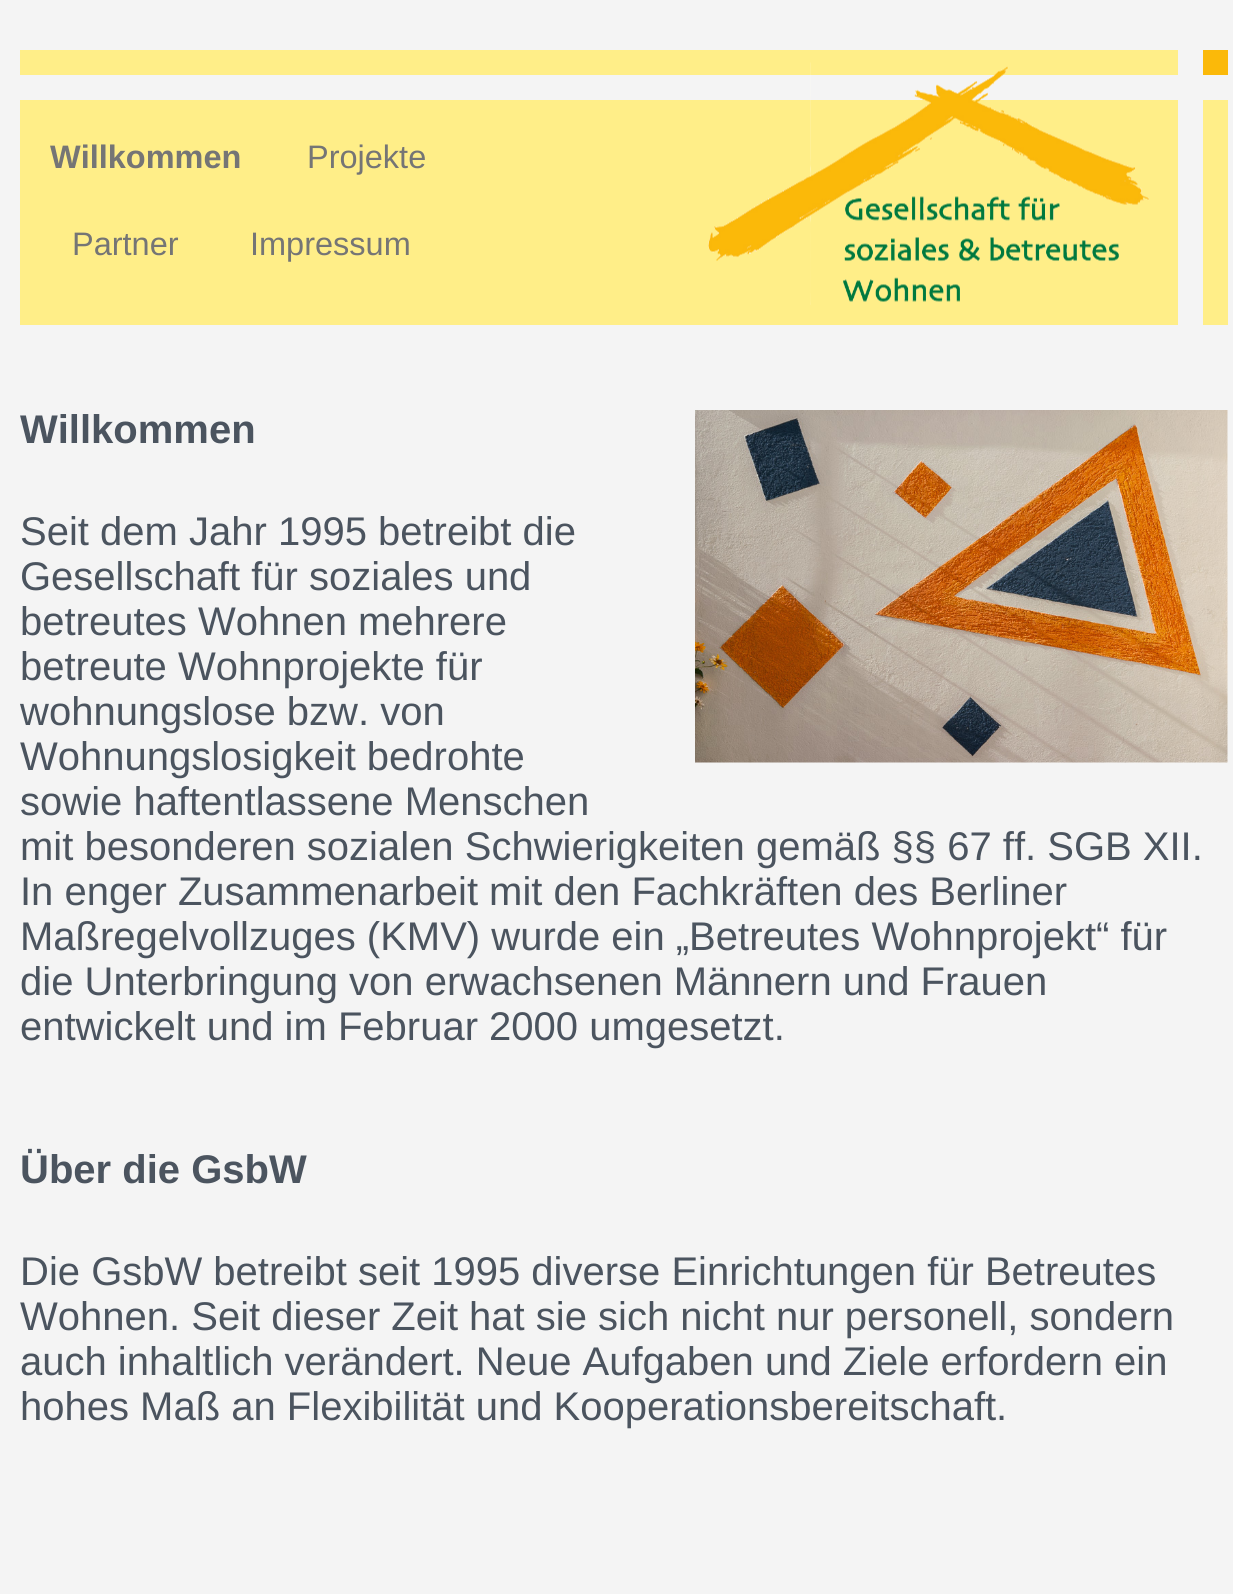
#include <cairo.h>
#include <math.h>
#include <stddef.h>


static void rgb(cairo_t *cr, int r, int g, int b)
{
	cairo_set_source_rgb(cr, r / 255.0, g / 255.0, b / 255.0);
}

static void face(cairo_t *cr, const char *family, double size, int italic, int bold)
{
	cairo_select_font_face(cr, family, italic ? CAIRO_FONT_SLANT_ITALIC : CAIRO_FONT_SLANT_NORMAL,
		bold ? CAIRO_FONT_WEIGHT_BOLD : CAIRO_FONT_WEIGHT_NORMAL);
	cairo_set_font_size(cr, size);
}

static void label(cairo_t *cr, double x, double y, const char *s)
{
	cairo_move_to(cr, x, y);
	cairo_show_text(cr, s);
}

static void rect(cairo_t *cr, double x, double y, double w, double h)
{
	cairo_rectangle(cr, x, y, w, h);
	cairo_fill(cr);
}

static void image(cairo_t *cr, const char *path, double x, double y, double w, double h)
{
	cairo_surface_t *image = cairo_image_surface_create_from_png(path);
	cairo_save(cr);
	cairo_set_source_surface(cr, image, x, y);
	cairo_rectangle(cr, x, y, w, h);
	cairo_fill(cr);
	cairo_restore(cr);
	cairo_surface_destroy(image);
}

static void draw(cairo_t *cr) {
	rgb(cr, 244, 244, 244);
	cairo_paint(cr);
	rgb(cr, 255, 238, 136);
	rect(cr, 20, 50, 1208, 275);
	rgb(cr, 244, 244, 244);
	rect(cr, 20, 75, 1208, 25);
	rect(cr, 1178, 50, 25, 275);
	image(cr, "image0.png", 708, 62, 441, 243);
	rgb(cr, 251, 185, 9);
	rect(cr, 1203, 50, 25, 25);
	face(cr, "Liberation Sans", 32.5, 0, 1);
	rgb(cr, 117, 117, 117);
	label(cr, 50, 168, "Willkommen");
	face(cr, "Liberation Sans", 32.5, 0, 0);
	label(cr, 307, 168, "Projekte");
	label(cr, 72, 255, "Partner");
	label(cr, 250, 255, "Impressum");
	face(cr, "Liberation Sans", 40, 0, 1);
	rgb(cr, 75, 84, 95);
	label(cr, 20, 443, "Willkommen");
	image(cr, "image1.png", 695, 410, 533, 353);
	face(cr, "Liberation Sans", 40, 0, 0);
	label(cr, 20, 545, "Seit dem Jahr 1995 betreibt die");
	label(cr, 20, 590, "Gesellschaft für soziales und");
	label(cr, 20, 635, "betreutes Wohnen mehrere");
	label(cr, 20, 680, "betreute Wohnprojekte für");
	label(cr, 20, 725, "wohnungslose bzw. von");
	label(cr, 20, 770, "Wohnungslosigkeit bedrohte");
	label(cr, 20, 815, "sowie haftentlassene Menschen");
	label(cr, 20, 860, "mit besonderen sozialen Schwierigkeiten gemäß §§ 67 ff. SGB XII.");
	label(cr, 20, 905, "In enger Zusammenarbeit mit den Fachkräften des Berliner");
	label(cr, 20, 950, "Maßregelvollzuges (KMV) wurde ein „Betreutes Wohnprojekt“ für");
	label(cr, 20, 995, "die Unterbringung von erwachsenen Männern und Frauen");
	label(cr, 20, 1040, "entwickelt und im Februar 2000 umgesetzt.");
	face(cr, "Liberation Sans", 40, 0, 1);
	label(cr, 20, 1183, "Über die GsbW");
	face(cr, "Liberation Sans", 40, 0, 0);
	label(cr, 20, 1285, "Die GsbW betreibt seit 1995 diverse Einrichtungen für Betreutes");
	label(cr, 20, 1330, "Wohnen. Seit dieser Zeit hat sie sich nicht nur personell, sondern");
	label(cr, 20, 1375, "auch inhaltlich verändert. Neue Aufgaben und Ziele erfordern ein");
	label(cr, 20, 1420, "hohes Maß an Flexibilität und Kooperationsbereitschaft.");
}

int main(void) {
	cairo_surface_t *surface = cairo_image_surface_create(CAIRO_FORMAT_RGB24, 1233, 1594);
	cairo_t *cr = cairo_create(surface);
	cairo_font_options_t *options = cairo_font_options_create();
	cairo_font_options_set_hint_metrics(options, CAIRO_HINT_METRICS_OFF);
	cairo_font_options_set_hint_style(options, CAIRO_HINT_STYLE_NONE);
	cairo_set_font_options(cr, options);
	cairo_set_miter_limit(cr, 4);
	draw(cr);
	cairo_surface_write_to_png(surface, "render.png");
	cairo_font_options_destroy(options);
	cairo_destroy(cr);
	cairo_surface_destroy(surface);
	return 0;
}
